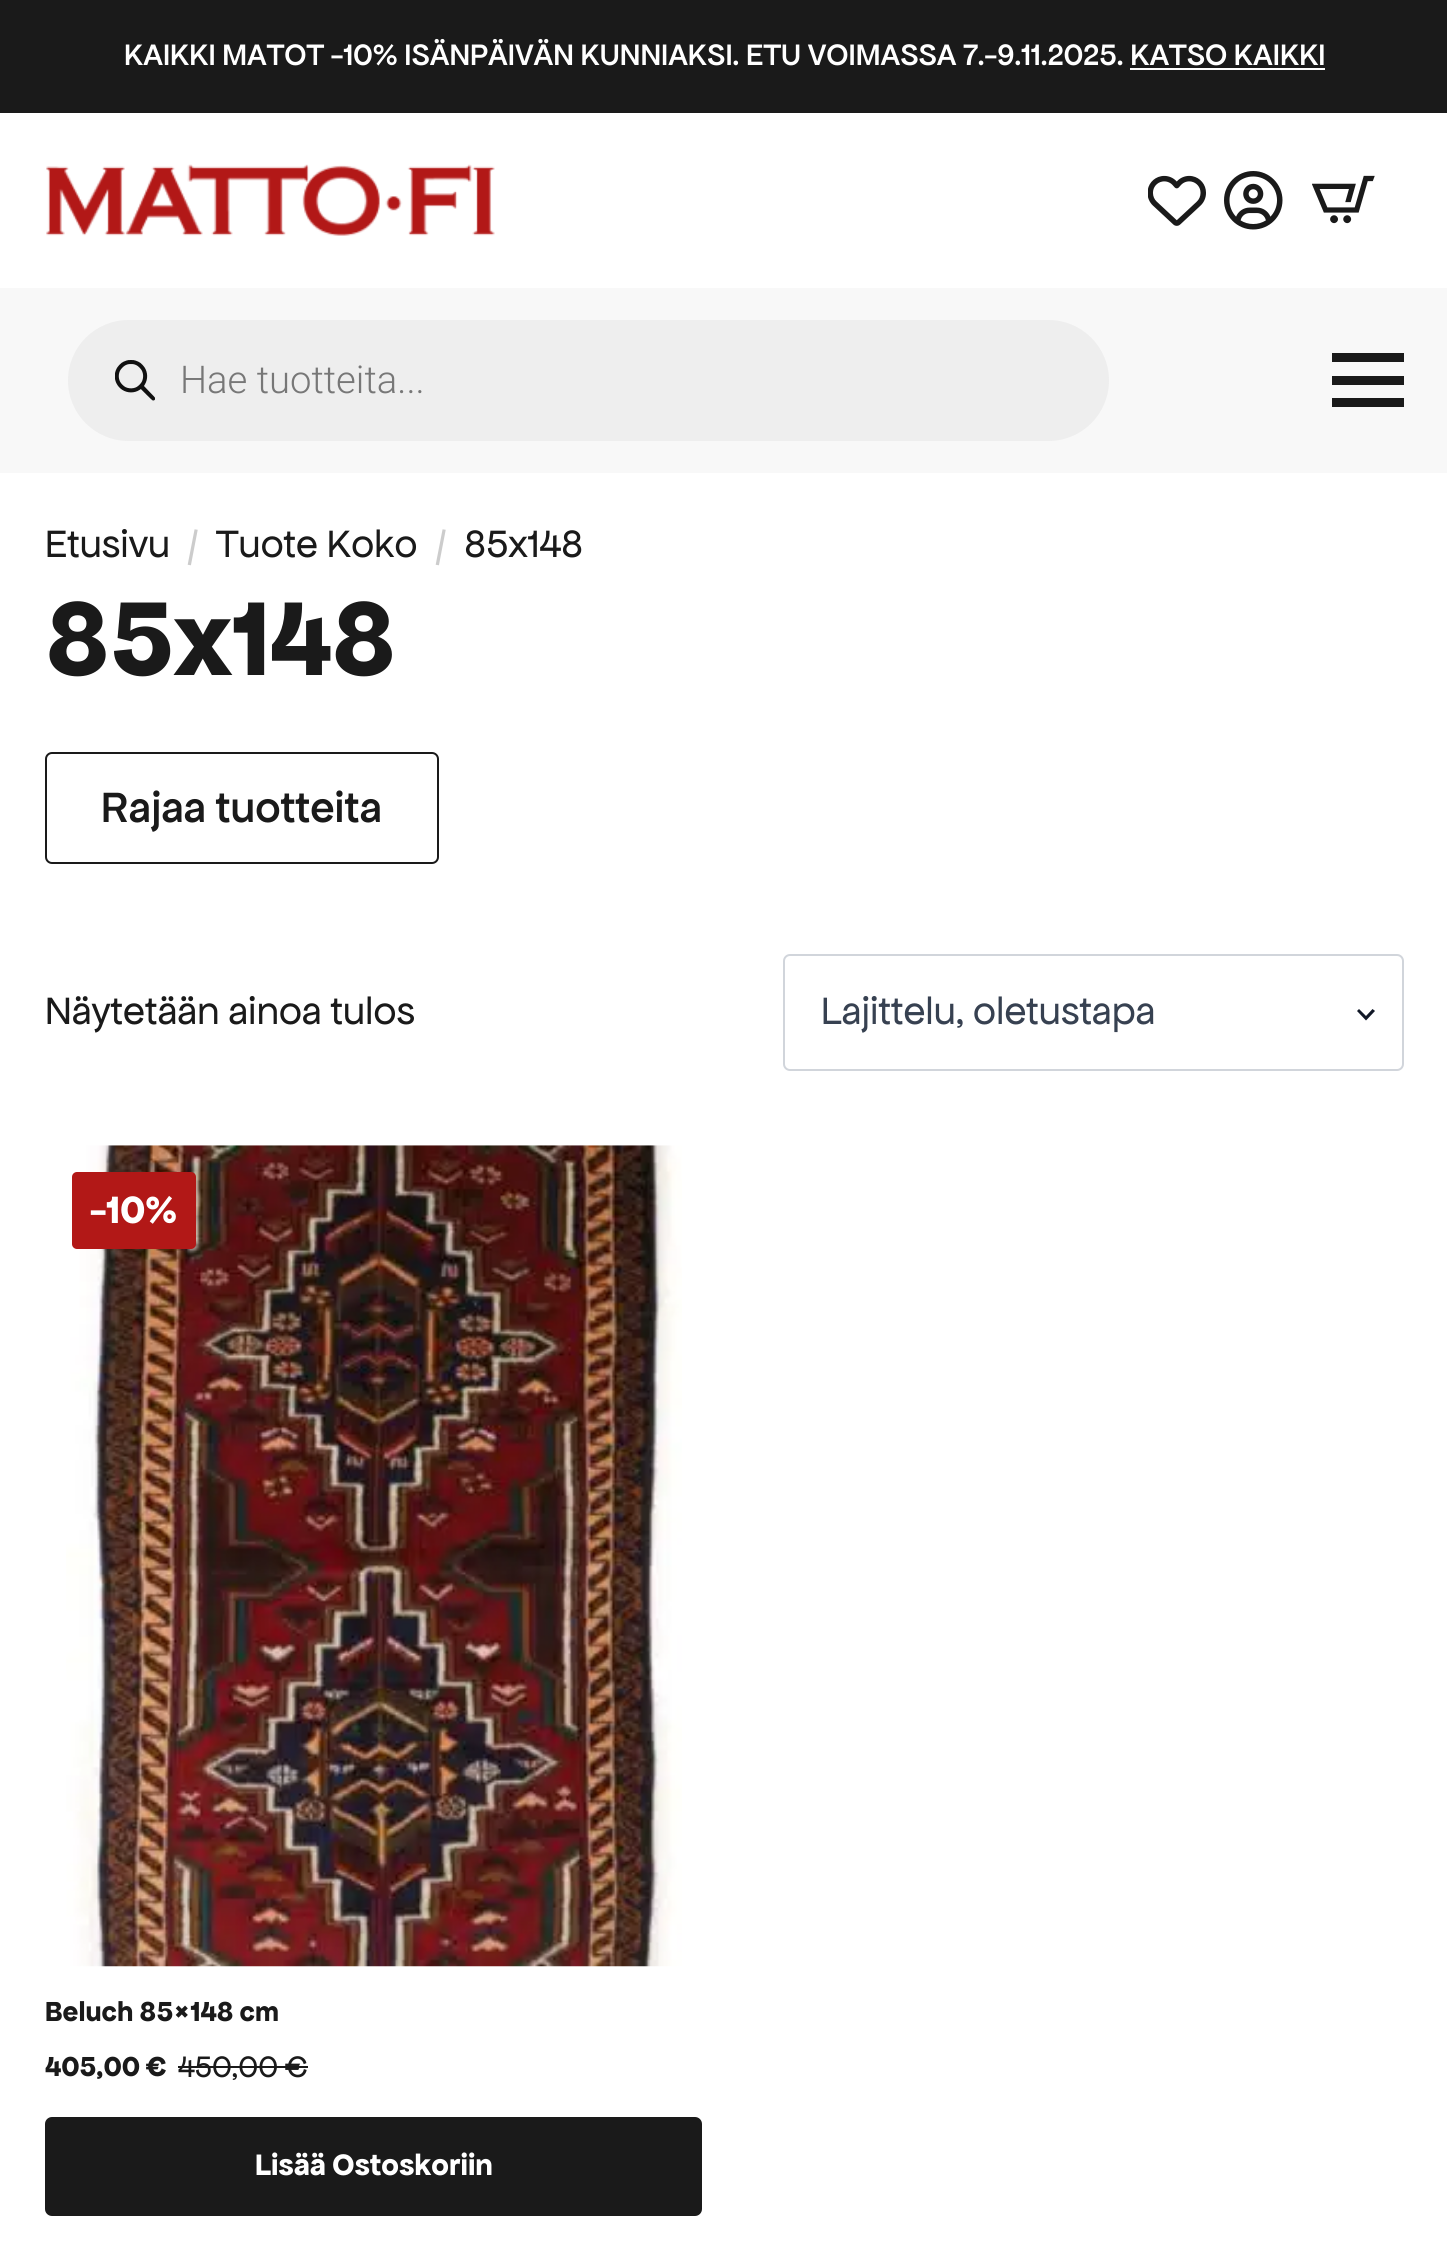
#include <cairo.h>
#include <math.h>
#include <stddef.h>


static void rgb(cairo_t *cr, int r, int g, int b)
{
	cairo_set_source_rgb(cr, r / 255.0, g / 255.0, b / 255.0);
}

static void face(cairo_t *cr, const char *family, double size, int italic, int bold)
{
	cairo_select_font_face(cr, family, italic ? CAIRO_FONT_SLANT_ITALIC : CAIRO_FONT_SLANT_NORMAL,
		bold ? CAIRO_FONT_WEIGHT_BOLD : CAIRO_FONT_WEIGHT_NORMAL);
	cairo_set_font_size(cr, size);
}

static void label(cairo_t *cr, double x, double y, const char *s)
{
	cairo_move_to(cr, x, y);
	cairo_show_text(cr, s);
}

static void rect(cairo_t *cr, double x, double y, double w, double h)
{
	cairo_rectangle(cr, x, y, w, h);
	cairo_fill(cr);
}

static void rrect(cairo_t *cr, double x, double y, double w, double h, double r)
{
	cairo_new_sub_path(cr);
	cairo_arc(cr, x + w - r, y + h - r, r, 0, M_PI / 2);
	cairo_arc(cr, x + r, y + h - r, r, M_PI / 2, M_PI);
	cairo_arc(cr, x + r, y + r, r, M_PI, 1.5 * M_PI);
	cairo_arc(cr, x + w - r, y + r, r, 1.5 * M_PI, 2 * M_PI);
	cairo_close_path(cr);
}

static void image(cairo_t *cr, const char *path, double x, double y, double w, double h)
{
	cairo_surface_t *image = cairo_image_surface_create_from_png(path);
	cairo_save(cr);
	cairo_set_source_surface(cr, image, x, y);
	cairo_rectangle(cr, x, y, w, h);
	cairo_fill(cr);
	cairo_restore(cr);
	cairo_surface_destroy(image);
}

static void draw(cairo_t *cr) {
	rgb(cr, 255, 255, 255);
	cairo_paint(cr);
	rgb(cr, 26, 26, 26);
	rect(cr, 0, 0, 1447, 113);
	face(cr, "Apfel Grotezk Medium", 31.5, 0, 0);
	rgb(cr, 255, 255, 255);
	label(cr, 124, 65, "KAIKKI MATOT -10% ISÄNPÄIVÄN KUNNIAKSI. ETU VOIMASSA 7.-9.11.2025. KATSO KAIKKI");
	rect(cr, 1130, 68, 195, 2);
	image(cr, "image0.png", 46, 164, 449, 72);
	image(cr, "image1.png", 1148, 175, 58, 51);
	image(cr, "image2.png", 1224, 171, 59, 59);
	image(cr, "image3.png", 1312, 175, 63, 49);
	rgb(cr, 248, 248, 248);
	rect(cr, 0, 288, 1447, 185);
	rgb(cr, 238, 238, 238);
	rrect(cr, 68, 320, 1041, 121, 60.5);
	cairo_fill(cr);
	image(cr, "image4.png", 115, 360, 40, 41);
	face(cr, "Roboto Light", 38.25, 0, 0);
	rgb(cr, 119, 119, 119);
	label(cr, 180, 393, "Hae tuotteita...");
	rgb(cr, 26, 26, 26);
	rect(cr, 1332, 376, 72, 9);
	rect(cr, 1332, 353, 72, 9);
	rect(cr, 1332, 398, 72, 9);
	face(cr, "Apfel Grotezk", 40.5, 0, 0);
	label(cr, 45, 557, "Etusivu");
	rgb(cr, 204, 204, 204);
	label(cr, 188, 557, "/");
	rgb(cr, 26, 26, 26);
	label(cr, 216, 557, "Tuote Koko");
	rgb(cr, 204, 204, 204);
	label(cr, 436, 557, "/");
	rgb(cr, 26, 26, 26);
	label(cr, 464, 557, "85x148");
	face(cr, "Apfel Grotezk", 111.5, 0, 1);
	label(cr, 45, 675, "85x148");
	rrect(cr, 46, 753, 392, 110, 6);
	cairo_stroke(cr);
	face(cr, "Apfel Grotezk Medium", 45, 0, 0);
	label(cr, 101, 822, "Rajaa tuotteita");
	face(cr, "Apfel Grotezk", 40.5, 0, 0);
	label(cr, 45, 1024, "Näytetään ainoa tulos");
	rrect(cr, 784, 955, 619, 115, 6);
	rgb(cr, 209, 213, 219);
	cairo_stroke(cr);
	rgb(cr, 55, 65, 81);
	label(cr, 821, 1024, "Lajittelu, oletustapa");
	rgb(cr, 17, 24, 39);
	cairo_new_path(cr);
	cairo_move_to(cr, 1357, 1011);
	cairo_line_to(cr, 1359, 1009);
	cairo_line_to(cr, 1366, 1016);
	cairo_line_to(cr, 1372.5, 1009);
	cairo_line_to(cr, 1375, 1011);
	cairo_line_to(cr, 1366, 1020.5);
	cairo_close_path(cr);
	cairo_fill(cr);
	image(cr, "image5.png", 66, 1145, 616, 822);
	rgb(cr, 178, 24, 23);
	rrect(cr, 72, 1172, 124, 77, 5);
	cairo_fill(cr);
	face(cr, "Apfel Grotezk", 40.5, 0, 1);
	rgb(cr, 255, 255, 255);
	label(cr, 90, 1223, "-10%");
	face(cr, "Apfel Grotezk", 29.25, 0, 1);
	rgb(cr, 26, 26, 26);
	label(cr, 45, 2021, "Beluch 85×148 cm");
	label(cr, 45, 2076, "405,00 €");
	face(cr, "Apfel Grotezk", 31.5, 0, 0);
	label(cr, 178, 2077, "450,00");
	rect(cr, 178, 2066, 108, 2);
	label(cr, 285, 2077, "€");
	rect(cr, 286, 2066, 22, 2);
	rrect(cr, 45, 2117, 657, 99, 7);
	cairo_fill(cr);
	face(cr, "Apfel Grotezk", 31.5, 0, 1);
	rgb(cr, 255, 255, 255);
	label(cr, 255, 2175, "Lisää Ostoskoriin");
}

int main(void) {
	cairo_surface_t *surface = cairo_image_surface_create(CAIRO_FORMAT_RGB24, 1447, 2255);
	cairo_t *cr = cairo_create(surface);
	cairo_font_options_t *options = cairo_font_options_create();
	cairo_font_options_set_hint_metrics(options, CAIRO_HINT_METRICS_OFF);
	cairo_font_options_set_hint_style(options, CAIRO_HINT_STYLE_NONE);
	cairo_set_font_options(cr, options);
	cairo_set_miter_limit(cr, 4);
	draw(cr);
	cairo_surface_write_to_png(surface, "render.png");
	cairo_font_options_destroy(options);
	cairo_destroy(cr);
	cairo_surface_destroy(surface);
	return 0;
}
